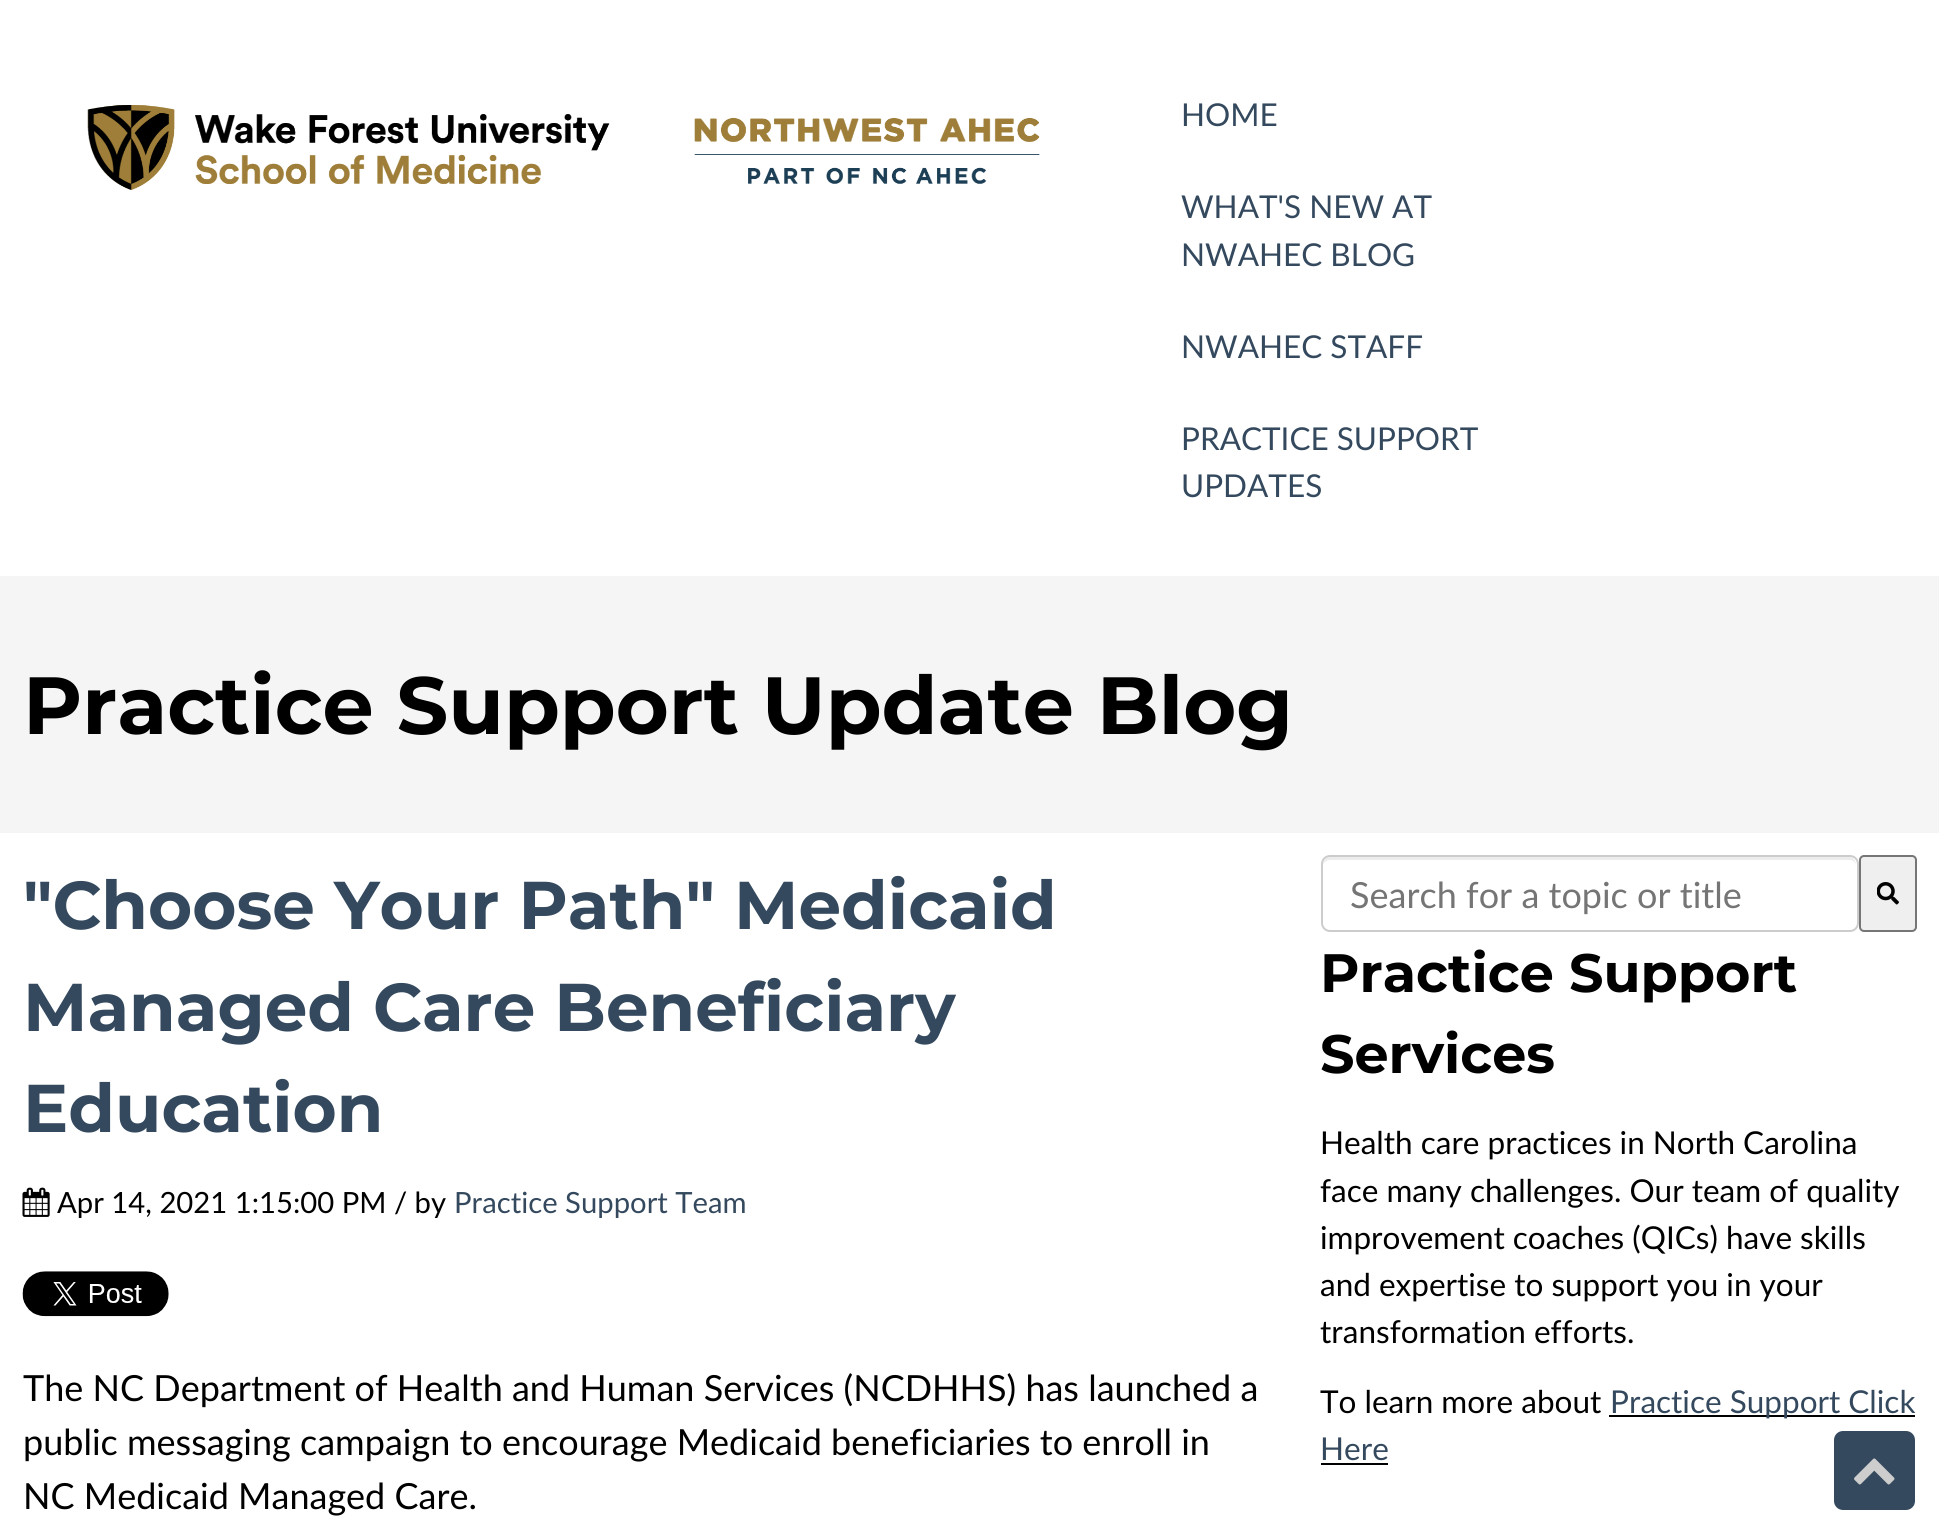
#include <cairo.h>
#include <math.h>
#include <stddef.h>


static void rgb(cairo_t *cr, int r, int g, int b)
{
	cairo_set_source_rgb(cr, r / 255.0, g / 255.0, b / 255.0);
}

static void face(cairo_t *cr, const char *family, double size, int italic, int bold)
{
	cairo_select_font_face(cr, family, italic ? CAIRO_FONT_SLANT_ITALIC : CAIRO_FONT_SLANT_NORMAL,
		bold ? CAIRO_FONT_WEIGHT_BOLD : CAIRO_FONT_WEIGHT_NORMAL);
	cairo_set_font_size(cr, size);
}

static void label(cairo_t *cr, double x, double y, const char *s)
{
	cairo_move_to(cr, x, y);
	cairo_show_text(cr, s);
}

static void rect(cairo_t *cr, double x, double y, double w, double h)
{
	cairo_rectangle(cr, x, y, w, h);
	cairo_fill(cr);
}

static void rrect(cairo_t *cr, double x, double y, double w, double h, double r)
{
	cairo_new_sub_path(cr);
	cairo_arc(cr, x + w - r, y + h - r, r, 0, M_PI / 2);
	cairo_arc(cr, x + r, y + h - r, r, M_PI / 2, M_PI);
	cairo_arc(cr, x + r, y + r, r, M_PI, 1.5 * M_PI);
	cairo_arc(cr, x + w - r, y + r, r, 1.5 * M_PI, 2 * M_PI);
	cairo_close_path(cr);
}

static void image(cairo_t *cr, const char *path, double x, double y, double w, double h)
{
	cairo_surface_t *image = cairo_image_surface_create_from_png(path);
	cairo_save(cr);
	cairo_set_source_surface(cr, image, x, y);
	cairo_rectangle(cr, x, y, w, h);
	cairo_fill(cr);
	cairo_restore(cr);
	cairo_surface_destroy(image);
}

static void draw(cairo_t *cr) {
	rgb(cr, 255, 255, 255);
	cairo_paint(cr);
	image(cr, "image0.png", 87, 105, 953, 85);
	face(cr, "Lato", 31.5, 0, 0);
	rgb(cr, 52, 73, 94);
	label(cr, 1181, 126, "HOME");
	label(cr, 1181, 218, "WHAT'S NEW AT");
	label(cr, 1181, 266, "NWAHEC BLOG");
	label(cr, 1181, 358, "NWAHEC STAFF");
	label(cr, 1181, 450, "PRACTICE SUPPORT");
	label(cr, 1181, 497, "UPDATES");
	rgb(cr, 245, 245, 245);
	rect(cr, 0, 576, 1939, 257);
	face(cr, "Montserrat", 81, 0, 1);
	rgb(cr, 0, 0, 0);
	label(cr, 23, 734, "Practice Support Update Blog");
	face(cr, "Montserrat", 67.5, 0, 1);
	rgb(cr, 52, 73, 94);
	label(cr, 23, 929, "\"Choose Your Path\" Medicaid");
	label(cr, 23, 1031, "Managed Care Beneficiary");
	label(cr, 23, 1132, "Education");
	image(cr, "image1.png", 22, 1187, 28, 30);
	face(cr, "Lato", 29.25, 0, 0);
	rgb(cr, 0, 0, 0);
	label(cr, 57, 1213, "Apr 14, 2021 1:15:00 PM / by");
	rgb(cr, 52, 73, 94);
	label(cr, 454, 1213, "Practice Support Team");
	image(cr, "image2.png", 22, 1271, 147, 46);
	face(cr, "Lato", 36, 0, 0);
	rgb(cr, 0, 0, 0);
	label(cr, 23, 1401, "The NC Department of Health and Human Services (NCDHHS) has launched a");
	label(cr, 23, 1455, "public messaging campaign to encourage Medicaid beneficiaries to enroll in");
	label(cr, 23, 1509, "NC Medicaid Managed Care.");
	rgb(cr, 236, 236, 236);
	cairo_new_path(cr);
	cairo_move_to(cr, 1330, 860);
	cairo_line_to(cr, 1850, 860);
	cairo_curve_to(cr, 1853, 860, 1856, 863, 1856, 866);
	cairo_curve_to(cr, 1856, 862, 1854, 857, 1849, 857);
	cairo_line_to(cr, 1330, 857);
	cairo_curve_to(cr, 1325, 857, 1323, 862, 1323, 866);
	cairo_curve_to(cr, 1323, 863, 1326, 860, 1330, 860);
	cairo_close_path(cr);
	cairo_fill(cr);
	rrect(cr, 1322, 856, 536, 75, 8);
	rgb(cr, 204, 204, 204);
	cairo_stroke(cr);
	rgb(cr, 117, 117, 117);
	label(cr, 1350, 908, "Search for a topic or title");
	rgb(cr, 239, 239, 239);
	rrect(cr, 1860, 856, 56, 75, 4);
	cairo_fill_preserve(cr);
	rgb(cr, 118, 118, 118);
	cairo_stroke(cr);
	image(cr, "image3.png", 1877, 882, 22, 23);
	face(cr, "Montserrat", 54, 0, 1);
	rgb(cr, 0, 0, 0);
	label(cr, 1320, 992, "Practice Support");
	label(cr, 1320, 1073, "Services");
	face(cr, "Lato", 31.5, 0, 0);
	label(cr, 1320, 1154, "Health care practices in North Carolina");
	label(cr, 1320, 1202, "face many challenges. Our team of quality");
	label(cr, 1320, 1249, "improvement coaches (QICs) have skills");
	label(cr, 1320, 1296, "and expertise to support you in your");
	label(cr, 1320, 1343, "transformation efforts.");
	label(cr, 1320, 1413, "To learn more about");
	rect(cr, 1609, 1415, 306, 2);
	rgb(cr, 52, 73, 94);
	label(cr, 1610, 1413, "Practice Support Click");
	label(cr, 1320, 1460, "Here");
	rgb(cr, 0, 0, 0);
	rect(cr, 1321, 1463, 67, 2);
	rgb(cr, 52, 73, 94);
	rrect(cr, 1834, 1431, 81, 79, 9);
	cairo_fill(cr);
	image(cr, "image4.png", 1854, 1458, 41, 27);
}

int main(void) {
	cairo_surface_t *surface = cairo_image_surface_create(CAIRO_FORMAT_RGB24, 1939, 1520);
	cairo_t *cr = cairo_create(surface);
	cairo_font_options_t *options = cairo_font_options_create();
	cairo_font_options_set_hint_metrics(options, CAIRO_HINT_METRICS_OFF);
	cairo_font_options_set_hint_style(options, CAIRO_HINT_STYLE_NONE);
	cairo_set_font_options(cr, options);
	cairo_set_miter_limit(cr, 4);
	draw(cr);
	cairo_surface_write_to_png(surface, "render.png");
	cairo_font_options_destroy(options);
	cairo_destroy(cr);
	cairo_surface_destroy(surface);
	return 0;
}
